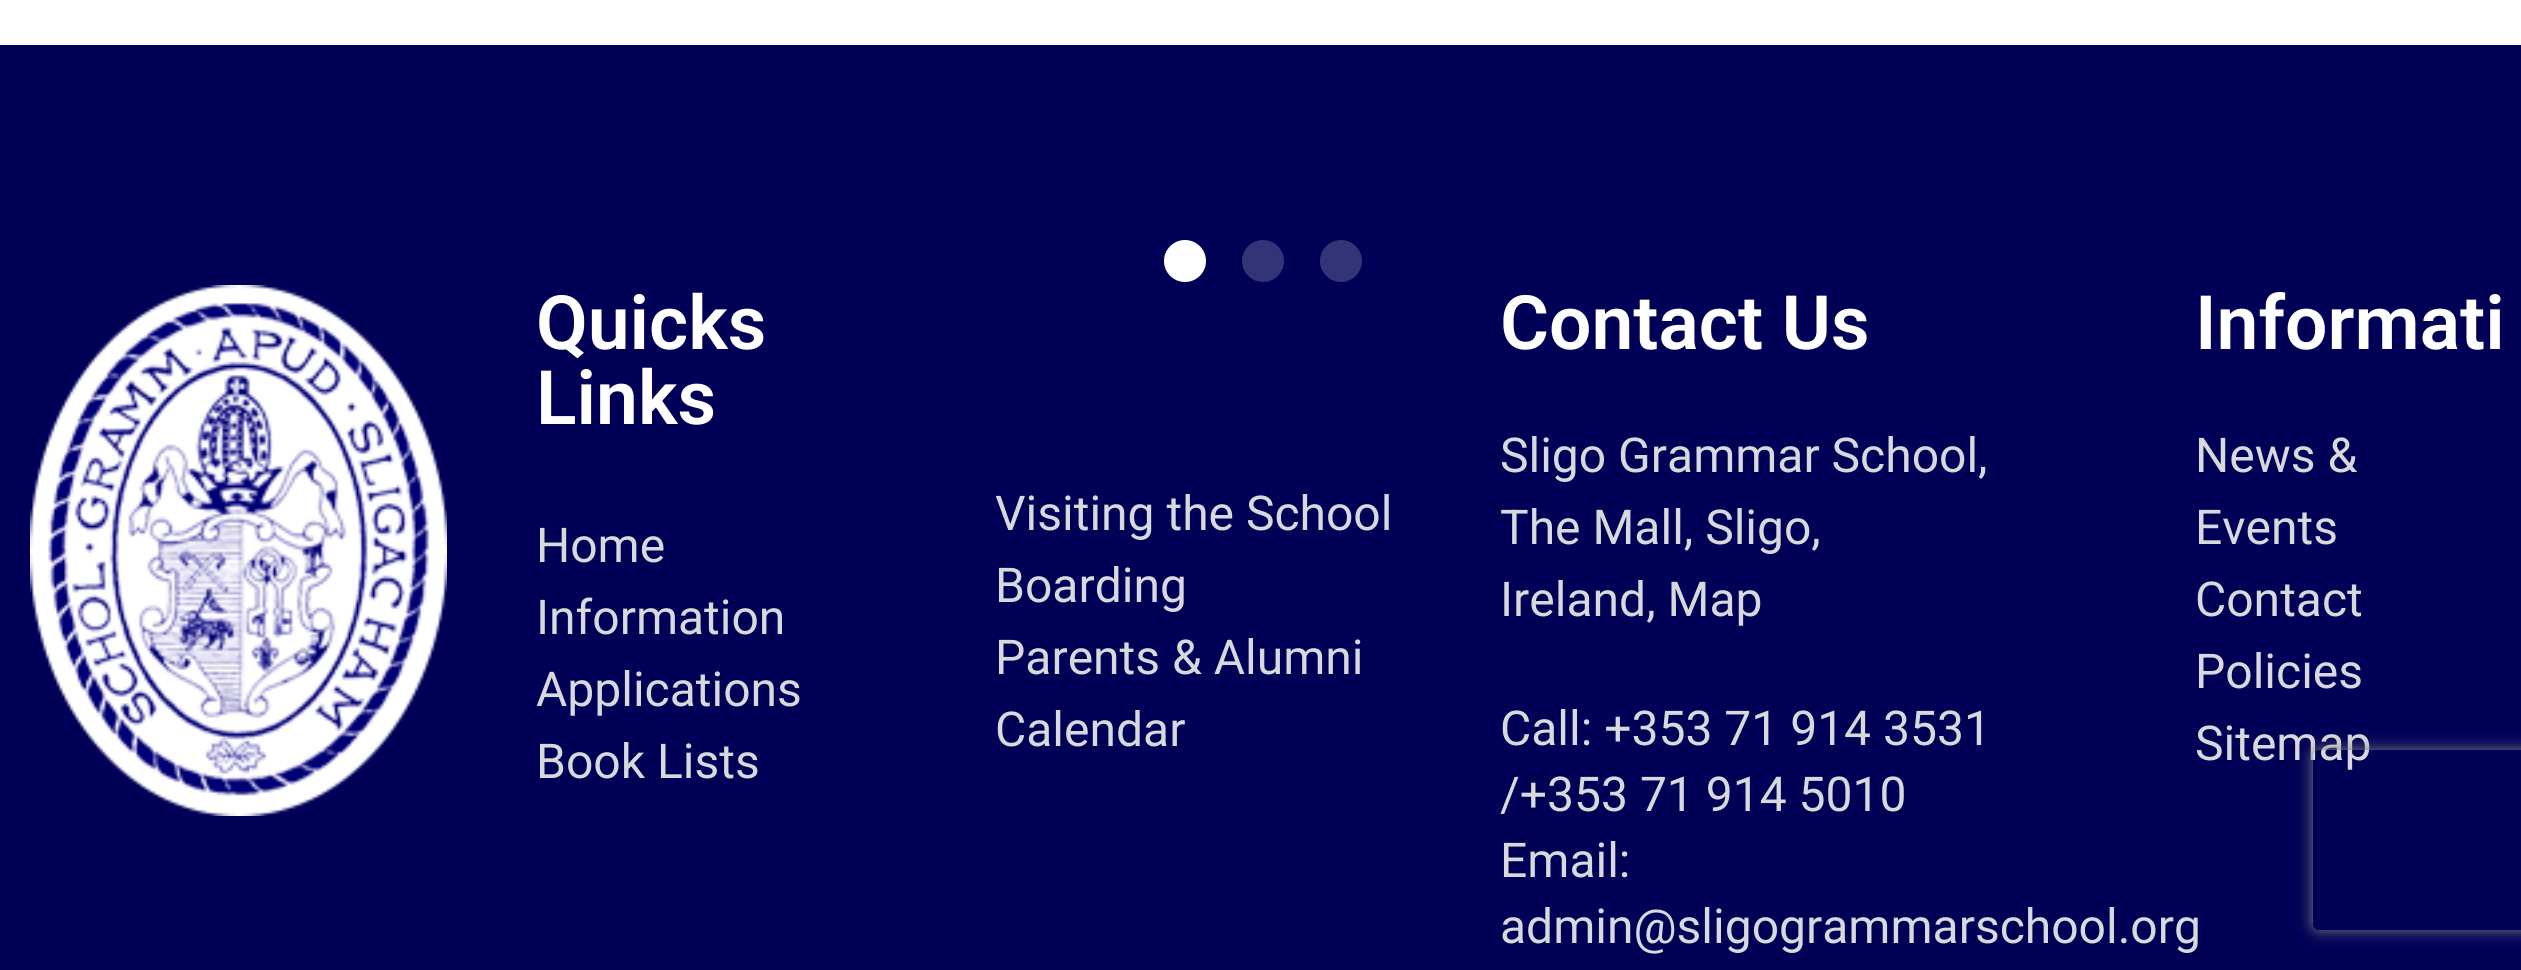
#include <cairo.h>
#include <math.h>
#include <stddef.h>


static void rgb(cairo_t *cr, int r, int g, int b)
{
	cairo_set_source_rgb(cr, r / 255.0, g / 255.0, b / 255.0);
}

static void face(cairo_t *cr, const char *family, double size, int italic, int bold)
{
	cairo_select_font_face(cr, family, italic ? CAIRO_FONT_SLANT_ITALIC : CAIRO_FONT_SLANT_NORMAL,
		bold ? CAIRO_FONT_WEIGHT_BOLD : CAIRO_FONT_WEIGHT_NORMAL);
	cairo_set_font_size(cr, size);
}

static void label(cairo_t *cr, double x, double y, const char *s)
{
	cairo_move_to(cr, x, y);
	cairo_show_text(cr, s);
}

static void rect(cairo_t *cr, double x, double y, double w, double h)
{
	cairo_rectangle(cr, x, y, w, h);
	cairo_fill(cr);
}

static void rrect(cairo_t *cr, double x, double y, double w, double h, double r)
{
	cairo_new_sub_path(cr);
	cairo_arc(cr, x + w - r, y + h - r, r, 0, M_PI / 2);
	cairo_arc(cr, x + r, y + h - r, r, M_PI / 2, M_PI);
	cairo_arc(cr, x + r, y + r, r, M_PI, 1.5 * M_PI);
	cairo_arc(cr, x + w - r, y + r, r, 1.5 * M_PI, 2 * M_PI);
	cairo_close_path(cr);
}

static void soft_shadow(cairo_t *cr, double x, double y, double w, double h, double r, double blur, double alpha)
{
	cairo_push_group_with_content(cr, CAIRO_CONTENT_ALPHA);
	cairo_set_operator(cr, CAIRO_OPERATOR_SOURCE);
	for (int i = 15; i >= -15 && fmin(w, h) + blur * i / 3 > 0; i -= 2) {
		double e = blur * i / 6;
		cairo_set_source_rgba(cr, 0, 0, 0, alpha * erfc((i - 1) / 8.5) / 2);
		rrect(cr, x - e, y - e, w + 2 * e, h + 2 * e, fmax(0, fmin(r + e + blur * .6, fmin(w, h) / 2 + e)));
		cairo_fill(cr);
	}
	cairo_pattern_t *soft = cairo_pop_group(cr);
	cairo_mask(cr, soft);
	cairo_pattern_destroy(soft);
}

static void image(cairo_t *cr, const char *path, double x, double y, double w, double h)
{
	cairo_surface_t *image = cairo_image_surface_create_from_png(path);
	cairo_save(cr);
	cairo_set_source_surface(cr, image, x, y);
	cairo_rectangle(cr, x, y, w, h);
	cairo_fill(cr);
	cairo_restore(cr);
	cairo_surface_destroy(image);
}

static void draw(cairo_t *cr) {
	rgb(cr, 255, 255, 255);
	cairo_paint(cr);
	rgb(cr, 0, 0, 86);
	rect(cr, 0, 45, 2521, 925);
	rgb(cr, 255, 255, 255);
	cairo_arc(cr, 1185, 261, 21, 0, 2 * M_PI);
	cairo_fill(cr);
	rgb(cr, 51, 51, 120);
	cairo_arc(cr, 1263, 261, 21, 0, 2 * M_PI);
	cairo_fill(cr);
	cairo_arc(cr, 1341, 261, 21, 0, 2 * M_PI);
	cairo_fill(cr);
	image(cr, "image0.png", 30, 285, 417, 531);
	face(cr, "Roboto SemiBold", 75, 0, 0);
	rgb(cr, 255, 255, 255);
	label(cr, 536, 349, "Quicks");
	label(cr, 536, 424, "Links");
	face(cr, "Roboto", 48, 0, 0);
	rgb(cr, 215, 217, 220);
	label(cr, 536, 562, "Home");
	label(cr, 536, 634, "Information");
	label(cr, 536, 706, "Applications");
	label(cr, 536, 778, "Book Lists");
	label(cr, 995, 530, "Visiting the School");
	label(cr, 995, 602, "Boarding");
	label(cr, 995, 674, "Parents & Alumni");
	label(cr, 995, 746, "Calendar");
	face(cr, "Roboto SemiBold", 75, 0, 0);
	rgb(cr, 255, 255, 255);
	label(cr, 1500, 349, "Contact Us");
	face(cr, "Roboto", 48, 0, 0);
	rgb(cr, 215, 217, 220);
	label(cr, 1500, 472, "Sligo Grammar School,");
	label(cr, 1500, 544, "The Mall, Sligo,");
	label(cr, 1500, 616, "Ireland, Map");
	label(cr, 1500, 745, "Call: +353 71 914 3531");
	label(cr, 1500, 811, "/+353 71 914 5010");
	label(cr, 1500, 877, "Email:");
	label(cr, 1500, 943, "admin@sligogrammarschool.org");
	face(cr, "Roboto SemiBold", 75, 0, 0);
	rgb(cr, 255, 255, 255);
	label(cr, 2195, 349, "Informati");
	face(cr, "Roboto", 48, 0, 0);
	rgb(cr, 215, 217, 220);
	label(cr, 2195, 472, "News &");
	label(cr, 2195, 544, "Events");
	label(cr, 2195, 616, "Contact");
	label(cr, 2195, 688, "Policies");
	label(cr, 2195, 760, "Sitemap");
	cairo_save(cr);
	cairo_set_fill_rule(cr, CAIRO_FILL_RULE_EVEN_ODD);
	cairo_new_path(cr);
	cairo_move_to(cr, 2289, 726);
	cairo_line_to(cr, 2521, 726);
	cairo_line_to(cr, 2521, 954);
	cairo_line_to(cr, 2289, 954);
	cairo_close_path(cr);
	cairo_move_to(cr, 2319, 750);
	cairo_line_to(cr, 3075, 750);
	cairo_curve_to(cr, 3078.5, 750, 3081, 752.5, 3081, 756);
	cairo_line_to(cr, 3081, 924);
	cairo_curve_to(cr, 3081, 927.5, 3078.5, 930, 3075, 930);
	cairo_line_to(cr, 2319, 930);
	cairo_curve_to(cr, 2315.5, 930, 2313, 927.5, 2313, 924);
	cairo_line_to(cr, 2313, 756);
	cairo_curve_to(cr, 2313, 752.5, 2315.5, 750, 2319, 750);
	cairo_close_path(cr);
	cairo_clip(cr);
	rgb(cr, 128, 128, 128);
	soft_shadow(cr, 2313, 750, 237, 180, 6, 7.5, 1);
	cairo_restore(cr);
}

int main(void) {
	cairo_surface_t *surface = cairo_image_surface_create(CAIRO_FORMAT_RGB24, 2521, 970);
	cairo_t *cr = cairo_create(surface);
	cairo_font_options_t *options = cairo_font_options_create();
	cairo_font_options_set_hint_metrics(options, CAIRO_HINT_METRICS_OFF);
	cairo_font_options_set_hint_style(options, CAIRO_HINT_STYLE_NONE);
	cairo_set_font_options(cr, options);
	cairo_set_miter_limit(cr, 4);
	draw(cr);
	cairo_surface_write_to_png(surface, "render.png");
	cairo_font_options_destroy(options);
	cairo_destroy(cr);
	cairo_surface_destroy(surface);
	return 0;
}
